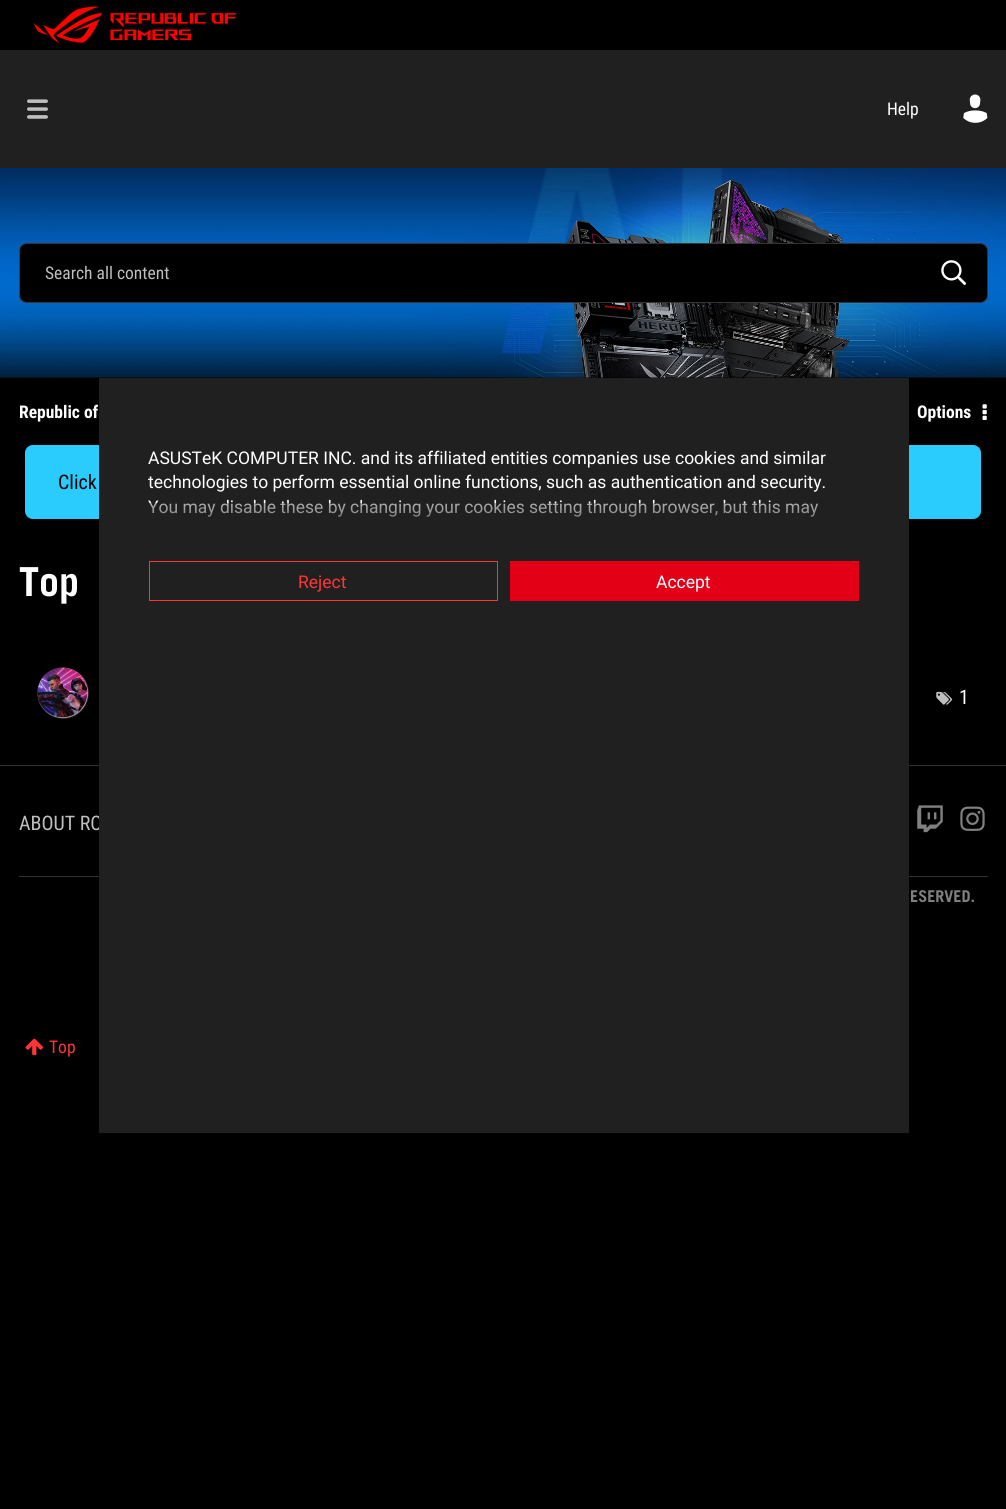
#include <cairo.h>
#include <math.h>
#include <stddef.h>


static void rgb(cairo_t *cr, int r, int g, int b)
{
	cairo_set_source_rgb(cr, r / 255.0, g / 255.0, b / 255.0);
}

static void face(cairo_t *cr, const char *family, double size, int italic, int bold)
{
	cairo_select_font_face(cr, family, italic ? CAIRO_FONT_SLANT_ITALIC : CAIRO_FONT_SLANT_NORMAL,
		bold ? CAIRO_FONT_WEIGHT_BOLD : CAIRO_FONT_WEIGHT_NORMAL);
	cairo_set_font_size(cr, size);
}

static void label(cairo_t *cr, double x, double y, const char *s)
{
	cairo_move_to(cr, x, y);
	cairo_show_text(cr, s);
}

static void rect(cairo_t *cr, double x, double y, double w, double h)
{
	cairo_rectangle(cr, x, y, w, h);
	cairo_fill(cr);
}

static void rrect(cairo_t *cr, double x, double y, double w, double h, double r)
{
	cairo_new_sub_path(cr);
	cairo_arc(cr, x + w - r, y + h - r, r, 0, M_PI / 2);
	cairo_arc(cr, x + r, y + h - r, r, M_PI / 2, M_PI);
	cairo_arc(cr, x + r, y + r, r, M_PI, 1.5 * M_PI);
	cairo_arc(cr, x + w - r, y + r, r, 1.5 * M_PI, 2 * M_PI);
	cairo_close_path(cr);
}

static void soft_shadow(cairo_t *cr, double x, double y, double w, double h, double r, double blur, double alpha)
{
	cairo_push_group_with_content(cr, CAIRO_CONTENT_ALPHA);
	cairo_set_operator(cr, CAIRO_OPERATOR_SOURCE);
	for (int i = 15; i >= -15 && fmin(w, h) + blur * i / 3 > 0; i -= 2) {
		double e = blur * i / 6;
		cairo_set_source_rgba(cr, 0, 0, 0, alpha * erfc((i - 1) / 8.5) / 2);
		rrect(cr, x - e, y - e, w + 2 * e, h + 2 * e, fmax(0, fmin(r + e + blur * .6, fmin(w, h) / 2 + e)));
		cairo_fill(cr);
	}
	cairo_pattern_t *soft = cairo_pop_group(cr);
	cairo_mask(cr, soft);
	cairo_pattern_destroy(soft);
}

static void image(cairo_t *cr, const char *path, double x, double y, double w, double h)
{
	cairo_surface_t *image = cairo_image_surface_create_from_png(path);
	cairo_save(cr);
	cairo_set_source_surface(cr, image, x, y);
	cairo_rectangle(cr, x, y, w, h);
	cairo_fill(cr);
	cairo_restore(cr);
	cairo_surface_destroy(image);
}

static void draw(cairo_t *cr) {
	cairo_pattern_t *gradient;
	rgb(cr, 0, 0, 0);
	cairo_paint(cr);
	image(cr, "image0.png", 33, 6, 204, 37);
	rgb(cr, 32, 32, 32);
	rect(cr, 0, 50, 1006, 118);
	image(cr, "image1.png", 27, 99, 21, 20);
	face(cr, "Roboto Condensed", 17.5, 0, 0);
	rgb(cr, 255, 255, 255);
	label(cr, 887, 115, "Help");
	image(cr, "image2.png", 963, 94, 25, 29);
	image(cr, "image3.png", 0, 168, 1006, 210);
	rgb(cr, 0, 0, 0);
	rrect(cr, 19.5, 243.5, 968, 59, 7.5);
	cairo_fill_preserve(cr);
	rgb(cr, 51, 51, 51);
	cairo_set_line_width(cr, 1);
	cairo_stroke(cr);
	rgb(cr, 191, 191, 191);
	label(cr, 45, 279, "Search all content");
	image(cr, "image4.png", 941, 260, 25, 25);
	face(cr, "Roboto Condensed", 17.5, 0, 1);
	rgb(cr, 255, 255, 255);
	label(cr, 19, 418, "Republic of");
	label(cr, 917, 418, "Options");
	image(cr, "image5.png", 982, 404, 5, 16);
	rgb(cr, 41, 204, 252);
	rrect(cr, 25.5, 445.5, 955, 73, 7.5);
	cairo_fill_preserve(cr);
	cairo_stroke(cr);
	face(cr, "Roboto Condensed", 20, 0, 0);
	rgb(cr, 0, 0, 0);
	label(cr, 58, 489, "Click");
	face(cr, "Trade Gothic", 40, 0, 1);
	rgb(cr, 255, 255, 255);
	label(cr, 19, 596, "Top");
	rgb(cr, 196, 196, 196);
	soft_shadow(cr, 38, 668, 50, 50, 25, 0.5, 1);
	image(cr, "image6.png", 37, 667, 51, 51);
	image(cr, "image7.png", 936, 691, 17, 14);
	face(cr, "Roboto Condensed", 20, 0, 0);
	rgb(cr, 255, 255, 255);
	label(cr, 959, 704, "1");
	rgb(cr, 51, 51, 51);
	rect(cr, 0, 765, 1006, 1);
	rgb(cr, 191, 191, 191);
	label(cr, 19, 830, "ABOUT RO");
	image(cr, "image8.png", 917, 805, 26, 28);
	image(cr, "image9.png", 960, 806, 25, 25);
	rgb(cr, 51, 51, 51);
	rect(cr, 19, 876, 969, 1);
	face(cr, "Trade Gothic", 16.25, 0, 1);
	rgb(cr, 128, 128, 128);
	label(cr, 910, 902, "ESERVED.");
	image(cr, "image10.png", 25, 1038, 18, 18);
	face(cr, "Roboto Condensed", 17.5, 0, 0);
	rgb(cr, 255, 53, 53);
	label(cr, 49, 1053, "Top");
	rgb(cr, 32, 32, 32);
	rect(cr, 99, 378, 810, 755);
	face(cr, "Roboto", 17.5, 0, 0);
	rgb(cr, 255, 255, 255);
	label(cr, 148, 464, "ASUSTeK COMPUTER INC. and its affiliated entities companies use cookies and similar");
	label(cr, 148, 488, "technologies to perform essential online functions, such as authentication and security.");
	label(cr, 148, 513, "You may disable these by changing your cookies setting through browser, but this may");
	gradient = cairo_pattern_create_linear(504, 503, 504, 551);
	cairo_pattern_add_color_stop_rgba(gradient, 0, 0.125, 0.125, 0.125, 0.36);
	cairo_pattern_add_color_stop_rgba(gradient, 1, 0.125, 0.125, 0.125, 1);
	cairo_set_source(cr, gradient);
	cairo_pattern_destroy(gradient);
	rect(cr, 149, 503, 669, 14);
	cairo_rectangle(cr, 149.5, 561.5, 348, 39);
	rgb(cr, 255, 53, 53);
	cairo_stroke(cr);
	label(cr, 298, 588, "Reject");
	rgb(cr, 227, 0, 23);
	rect(cr, 510, 561, 349, 40);
	rgb(cr, 255, 255, 255);
	label(cr, 656, 588, "Accept");
}

int main(void) {
	cairo_surface_t *surface = cairo_image_surface_create(CAIRO_FORMAT_RGB24, 1006, 1509);
	cairo_t *cr = cairo_create(surface);
	cairo_font_options_t *options = cairo_font_options_create();
	cairo_font_options_set_hint_metrics(options, CAIRO_HINT_METRICS_OFF);
	cairo_font_options_set_hint_style(options, CAIRO_HINT_STYLE_NONE);
	cairo_set_font_options(cr, options);
	cairo_set_miter_limit(cr, 4);
	draw(cr);
	cairo_surface_write_to_png(surface, "render.png");
	cairo_font_options_destroy(options);
	cairo_destroy(cr);
	cairo_surface_destroy(surface);
	return 0;
}
